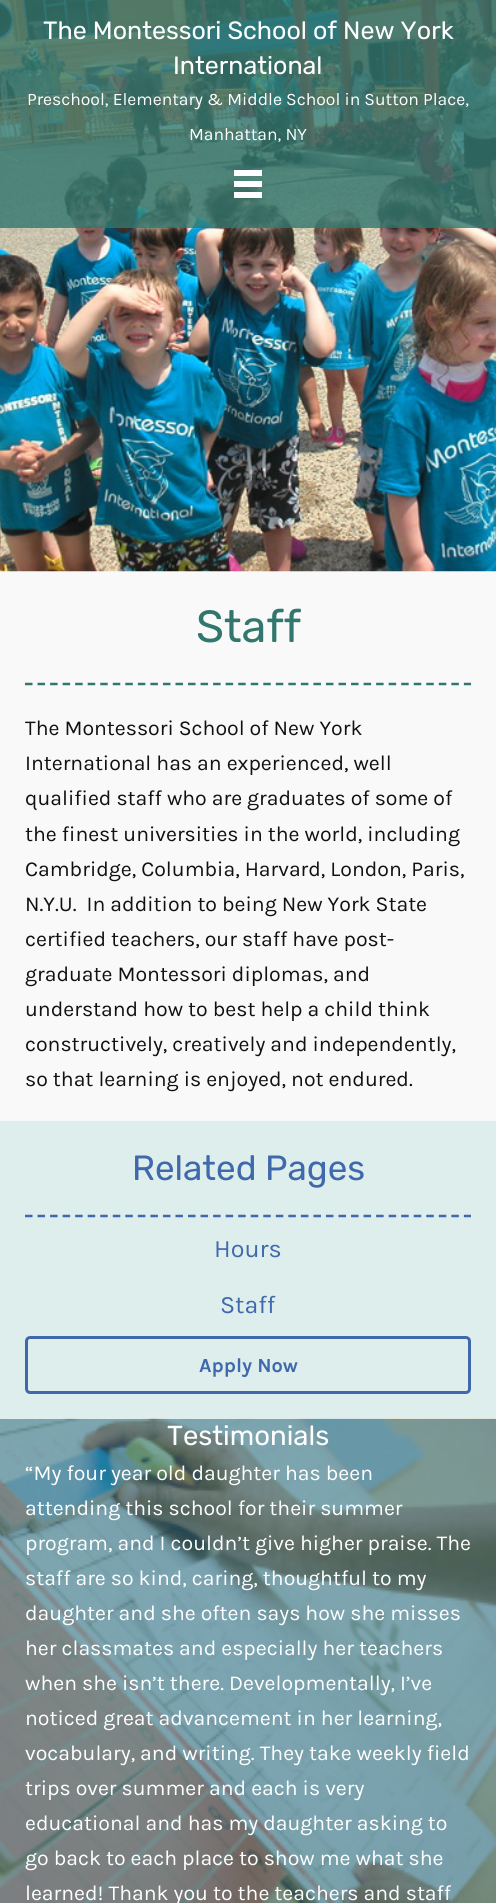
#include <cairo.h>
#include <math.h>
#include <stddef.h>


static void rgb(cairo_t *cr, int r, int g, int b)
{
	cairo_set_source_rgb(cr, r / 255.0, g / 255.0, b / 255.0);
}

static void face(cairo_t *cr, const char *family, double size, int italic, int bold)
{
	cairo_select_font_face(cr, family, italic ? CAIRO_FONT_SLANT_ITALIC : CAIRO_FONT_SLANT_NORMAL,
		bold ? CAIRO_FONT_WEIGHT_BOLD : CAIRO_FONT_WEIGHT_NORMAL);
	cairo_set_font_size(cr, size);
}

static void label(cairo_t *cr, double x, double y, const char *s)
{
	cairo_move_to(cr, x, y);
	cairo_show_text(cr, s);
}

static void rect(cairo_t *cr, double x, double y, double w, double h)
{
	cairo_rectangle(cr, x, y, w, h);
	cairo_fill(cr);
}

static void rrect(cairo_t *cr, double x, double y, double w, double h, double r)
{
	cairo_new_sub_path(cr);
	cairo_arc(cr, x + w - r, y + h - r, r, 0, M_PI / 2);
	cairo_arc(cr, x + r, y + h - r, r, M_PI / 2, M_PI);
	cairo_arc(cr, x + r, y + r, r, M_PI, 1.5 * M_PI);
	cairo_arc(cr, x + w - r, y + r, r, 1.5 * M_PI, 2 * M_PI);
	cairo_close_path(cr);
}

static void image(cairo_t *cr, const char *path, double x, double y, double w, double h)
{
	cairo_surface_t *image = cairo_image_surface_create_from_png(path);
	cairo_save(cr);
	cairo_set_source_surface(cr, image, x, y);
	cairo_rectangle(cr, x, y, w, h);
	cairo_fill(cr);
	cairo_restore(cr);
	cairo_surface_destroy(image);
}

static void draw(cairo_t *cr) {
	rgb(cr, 249, 249, 249);
	cairo_paint(cr);
	image(cr, "image0.png", 0, 0, 496, 572);
	cairo_set_source_rgba(cr, 0.196, 0.467, 0.431, 0.8);
	rect(cr, 0, 0, 496, 228);
	face(cr, "Rubik", 25, 0, 0);
	rgb(cr, 255, 255, 255);
	label(cr, 43, 39, "The Montessori School of New York");
	label(cr, 173, 74, "International");
	face(cr, "Karla", 17.5, 0, 0);
	label(cr, 27, 105, "Preschool, Elementary & Middle School in Sutton Place,");
	label(cr, 189, 140, "Manhattan, NY");
	rect(cr, 234, 170, 28, 6);
	rect(cr, 234, 181, 28, 6);
	rect(cr, 234, 192, 28, 6);
	face(cr, "Rubik", 45, 0, 0);
	rgb(cr, 50, 119, 110);
	label(cr, 196, 642, "Staff");
	cairo_new_path(cr);
	cairo_move_to(cr, 25, 684);
	cairo_line_to(cr, 471, 684);
	cairo_set_line_width(cr, 2.5);
	cairo_set_dash(cr, (double[]){7.5, 5.04}, 2, 0);
	cairo_stroke(cr);
	face(cr, "Karla", 21.25, 0, 0);
	rgb(cr, 17, 17, 17);
	label(cr, 25, 735, "The Montessori School of New York");
	label(cr, 25, 770, "International has an experienced, well");
	label(cr, 25, 805, "qualified staff who are graduates of some of");
	label(cr, 25, 841, "the finest universities in the world, including");
	label(cr, 25, 876, "Cambridge, Columbia, Harvard, London, Paris,");
	label(cr, 25, 911, "N.Y.U.  In addition to being New York State");
	label(cr, 25, 946, "certified teachers, our staff have post-");
	label(cr, 25, 981, "graduate Montessori diplomas, and");
	label(cr, 25, 1016, "understand how to best help a child think");
	label(cr, 25, 1051, "constructively, creatively and independently,");
	label(cr, 25, 1086, "so that learning is enjoyed, not endured.");
	rgb(cr, 221, 238, 236);
	rect(cr, 0, 1121, 496, 298);
	face(cr, "Rubik", 35, 0, 0);
	rgb(cr, 63, 105, 172);
	label(cr, 132, 1180, "Related Pages");
	cairo_new_path(cr);
	cairo_move_to(cr, 25, 1216);
	cairo_line_to(cr, 471, 1216);
	cairo_stroke(cr);
	face(cr, "Karla", 25, 0, 0);
	label(cr, 214, 1257, "Hours");
	label(cr, 220, 1313, "Staff");
	rrect(cr, 26.5, 1337.5, 443, 55, 3.5);
	cairo_set_line_width(cr, 3);
	cairo_set_dash(cr, NULL, 0, 0);
	cairo_stroke(cr);
	face(cr, "Karla", 20, 0, 1);
	label(cr, 199, 1372, "Apply Now");
	image(cr, "image1.png", 0, 1418, 496, 485);
	face(cr, "Rubik", 27.5, 0, 0);
	rgb(cr, 255, 255, 255);
	label(cr, 167, 1445, "Testimonials");
	face(cr, "Karla", 21.25, 0, 0);
	label(cr, 25, 1480, "“My four year old daughter has been");
	label(cr, 25, 1515, "attending this school for their summer");
	label(cr, 25, 1550, "program, and I couldn’t give higher praise. The");
	label(cr, 25, 1585, "staff are so kind, caring, thoughtful to my");
	label(cr, 25, 1620, "daughter and she often says how she misses");
	label(cr, 25, 1655, "her classmates and especially her teachers");
	label(cr, 25, 1690, "when she isn’t there. Developmentally, I’ve");
	label(cr, 25, 1725, "noticed great advancement in her learning,");
	label(cr, 25, 1760, "vocabulary, and writing. They take weekly field");
	label(cr, 25, 1795, "trips over summer and each is very");
	label(cr, 25, 1830, "educational and has my daughter asking to");
	label(cr, 25, 1865, "go back to each place to show me what she");
	label(cr, 25, 1900, "learned! Thank you to the teachers and staff");
}

int main(void) {
	cairo_surface_t *surface = cairo_image_surface_create(CAIRO_FORMAT_RGB24, 496, 1903);
	cairo_t *cr = cairo_create(surface);
	cairo_font_options_t *options = cairo_font_options_create();
	cairo_font_options_set_hint_metrics(options, CAIRO_HINT_METRICS_OFF);
	cairo_font_options_set_hint_style(options, CAIRO_HINT_STYLE_NONE);
	cairo_set_font_options(cr, options);
	cairo_set_miter_limit(cr, 4);
	draw(cr);
	cairo_surface_write_to_png(surface, "render.png");
	cairo_font_options_destroy(options);
	cairo_destroy(cr);
	cairo_surface_destroy(surface);
	return 0;
}
